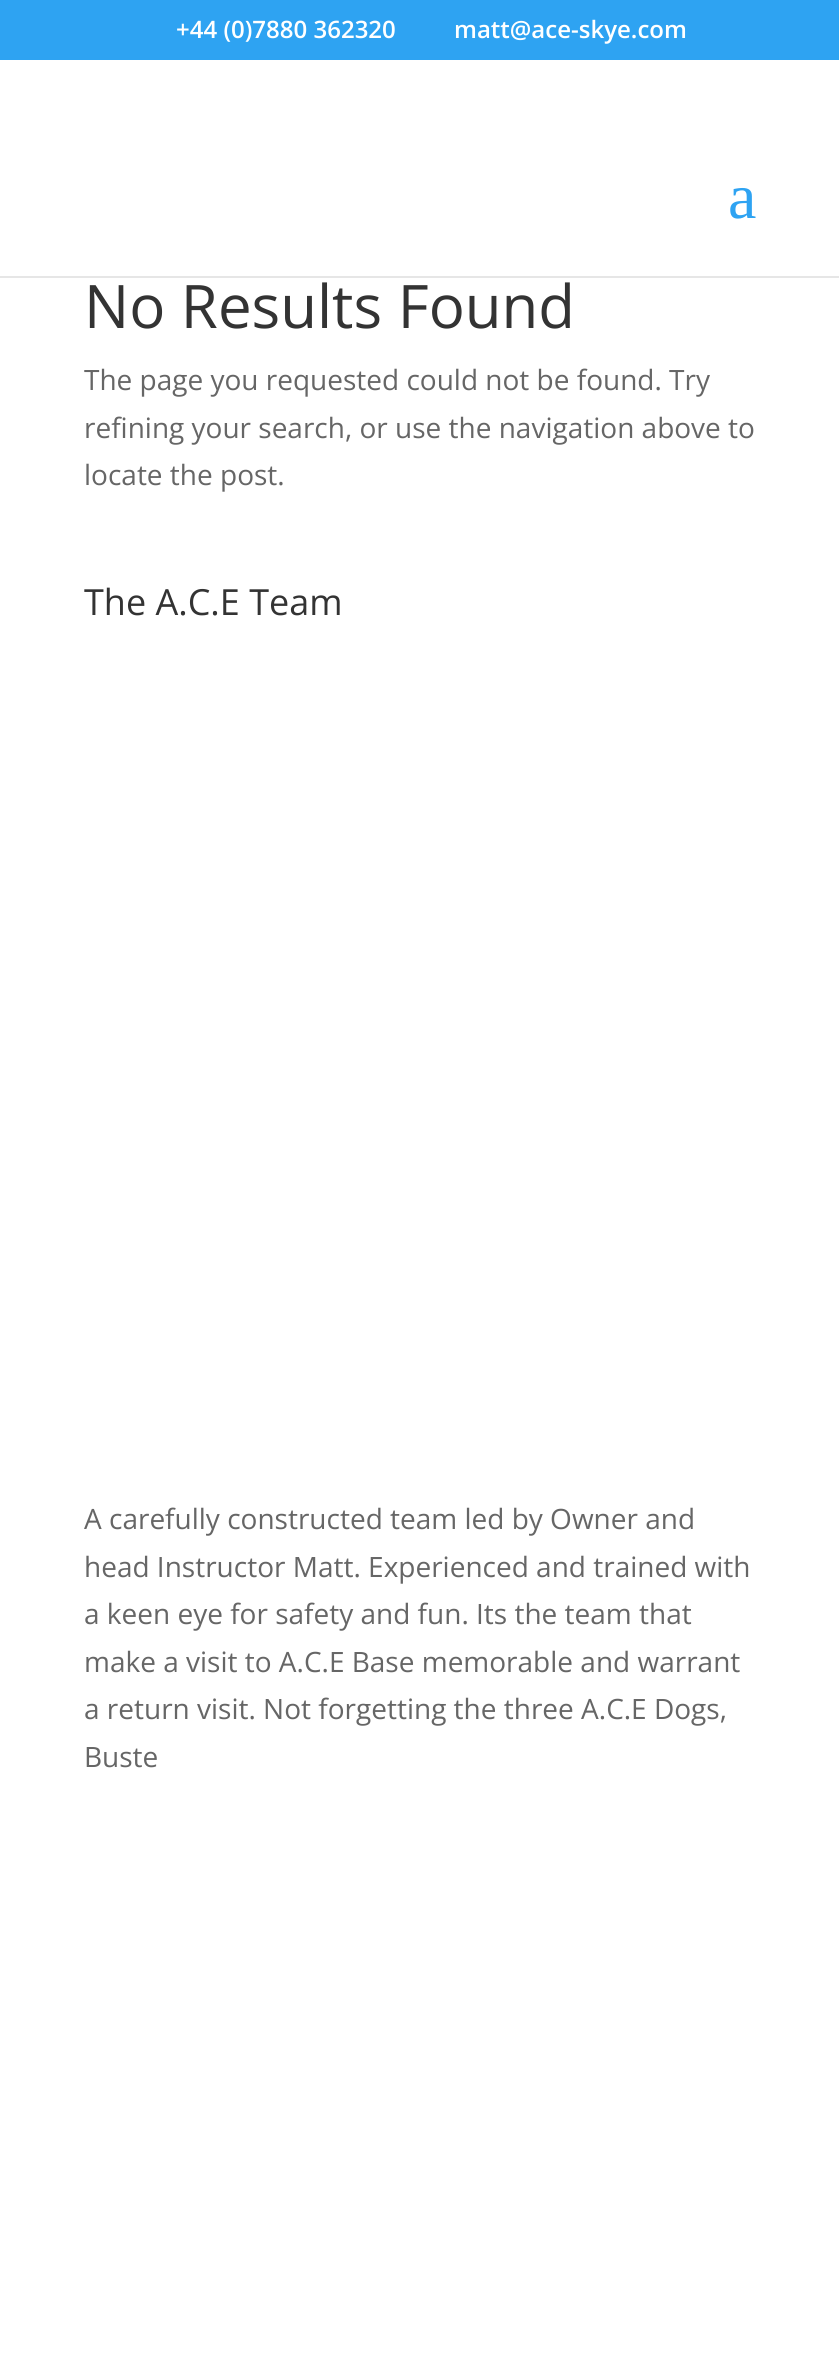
#include <cairo.h>
#include <math.h>
#include <stddef.h>


static void rgb(cairo_t *cr, int r, int g, int b)
{
	cairo_set_source_rgb(cr, r / 255.0, g / 255.0, b / 255.0);
}

static void face(cairo_t *cr, const char *family, double size, int italic, int bold)
{
	cairo_select_font_face(cr, family, italic ? CAIRO_FONT_SLANT_ITALIC : CAIRO_FONT_SLANT_NORMAL,
		bold ? CAIRO_FONT_WEIGHT_BOLD : CAIRO_FONT_WEIGHT_NORMAL);
	cairo_set_font_size(cr, size);
}

static void label(cairo_t *cr, double x, double y, const char *s)
{
	cairo_move_to(cr, x, y);
	cairo_show_text(cr, s);
}

static void rect(cairo_t *cr, double x, double y, double w, double h)
{
	cairo_rectangle(cr, x, y, w, h);
	cairo_fill(cr);
}

static void draw(cairo_t *cr) {
	rgb(cr, 255, 255, 255);
	cairo_paint(cr);
	rgb(cr, 46, 163, 242);
	rect(cr, 0, 0, 839, 60);
	face(cr, "Open Sans SemiBold", 24, 0, 0);
	rgb(cr, 255, 255, 255);
	label(cr, 176, 38, "+44 (0)7880 362320");
	label(cr, 454, 38, "matt@ace-skye.com");
	rgb(cr, 230, 230, 230);
	rect(cr, 0, 276, 839, 2);
	face(cr, "Liberation Serif", 64, 0, 0);
	rgb(cr, 46, 163, 242);
	label(cr, 728, 218, "a");
	face(cr, "Open Sans", 60, 0, 0);
	rgb(cr, 51, 51, 51);
	label(cr, 84, 328, "No Results Found");
	face(cr, "Open Sans", 28, 0, 0);
	rgb(cr, 102, 102, 102);
	label(cr, 84, 390, "The page you requested could not be found. Try");
	label(cr, 84, 438, "refining your search, or use the navigation above to");
	label(cr, 84, 485, "locate the post.");
	face(cr, "Open Sans", 36, 0, 0);
	rgb(cr, 51, 51, 51);
	label(cr, 84, 615, "The A.C.E Team");
	face(cr, "Open Sans", 28, 0, 0);
	rgb(cr, 102, 102, 102);
	label(cr, 84, 1529, "A carefully constructed team led by Owner and");
	label(cr, 84, 1577, "head Instructor Matt. Experienced and trained with");
	label(cr, 84, 1624, "a keen eye for safety and fun. Its the team that");
	label(cr, 84, 1672, "make a visit to A.C.E Base memorable and warrant");
	label(cr, 84, 1719, "a return visit. Not forgetting the three A.C.E Dogs,");
	label(cr, 84, 1767, "Buste");
}

int main(void) {
	cairo_surface_t *surface = cairo_image_surface_create(CAIRO_FORMAT_RGB24, 839, 2377);
	cairo_t *cr = cairo_create(surface);
	cairo_font_options_t *options = cairo_font_options_create();
	cairo_font_options_set_hint_metrics(options, CAIRO_HINT_METRICS_OFF);
	cairo_font_options_set_hint_style(options, CAIRO_HINT_STYLE_NONE);
	cairo_set_font_options(cr, options);
	cairo_set_miter_limit(cr, 4);
	draw(cr);
	cairo_surface_write_to_png(surface, "render.png");
	cairo_font_options_destroy(options);
	cairo_destroy(cr);
	cairo_surface_destroy(surface);
	return 0;
}
